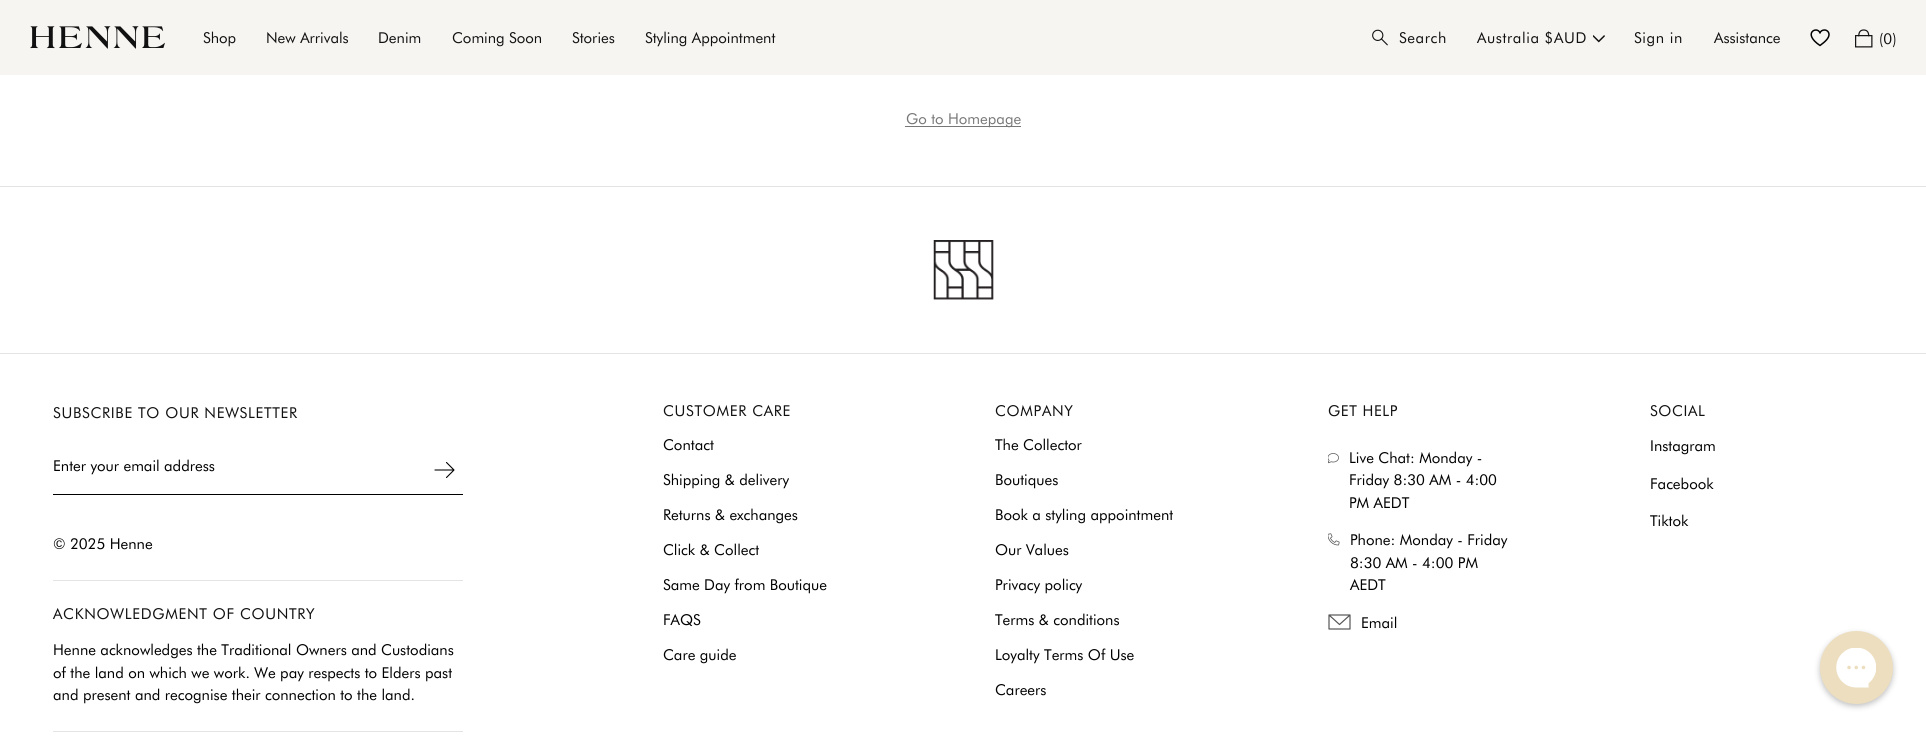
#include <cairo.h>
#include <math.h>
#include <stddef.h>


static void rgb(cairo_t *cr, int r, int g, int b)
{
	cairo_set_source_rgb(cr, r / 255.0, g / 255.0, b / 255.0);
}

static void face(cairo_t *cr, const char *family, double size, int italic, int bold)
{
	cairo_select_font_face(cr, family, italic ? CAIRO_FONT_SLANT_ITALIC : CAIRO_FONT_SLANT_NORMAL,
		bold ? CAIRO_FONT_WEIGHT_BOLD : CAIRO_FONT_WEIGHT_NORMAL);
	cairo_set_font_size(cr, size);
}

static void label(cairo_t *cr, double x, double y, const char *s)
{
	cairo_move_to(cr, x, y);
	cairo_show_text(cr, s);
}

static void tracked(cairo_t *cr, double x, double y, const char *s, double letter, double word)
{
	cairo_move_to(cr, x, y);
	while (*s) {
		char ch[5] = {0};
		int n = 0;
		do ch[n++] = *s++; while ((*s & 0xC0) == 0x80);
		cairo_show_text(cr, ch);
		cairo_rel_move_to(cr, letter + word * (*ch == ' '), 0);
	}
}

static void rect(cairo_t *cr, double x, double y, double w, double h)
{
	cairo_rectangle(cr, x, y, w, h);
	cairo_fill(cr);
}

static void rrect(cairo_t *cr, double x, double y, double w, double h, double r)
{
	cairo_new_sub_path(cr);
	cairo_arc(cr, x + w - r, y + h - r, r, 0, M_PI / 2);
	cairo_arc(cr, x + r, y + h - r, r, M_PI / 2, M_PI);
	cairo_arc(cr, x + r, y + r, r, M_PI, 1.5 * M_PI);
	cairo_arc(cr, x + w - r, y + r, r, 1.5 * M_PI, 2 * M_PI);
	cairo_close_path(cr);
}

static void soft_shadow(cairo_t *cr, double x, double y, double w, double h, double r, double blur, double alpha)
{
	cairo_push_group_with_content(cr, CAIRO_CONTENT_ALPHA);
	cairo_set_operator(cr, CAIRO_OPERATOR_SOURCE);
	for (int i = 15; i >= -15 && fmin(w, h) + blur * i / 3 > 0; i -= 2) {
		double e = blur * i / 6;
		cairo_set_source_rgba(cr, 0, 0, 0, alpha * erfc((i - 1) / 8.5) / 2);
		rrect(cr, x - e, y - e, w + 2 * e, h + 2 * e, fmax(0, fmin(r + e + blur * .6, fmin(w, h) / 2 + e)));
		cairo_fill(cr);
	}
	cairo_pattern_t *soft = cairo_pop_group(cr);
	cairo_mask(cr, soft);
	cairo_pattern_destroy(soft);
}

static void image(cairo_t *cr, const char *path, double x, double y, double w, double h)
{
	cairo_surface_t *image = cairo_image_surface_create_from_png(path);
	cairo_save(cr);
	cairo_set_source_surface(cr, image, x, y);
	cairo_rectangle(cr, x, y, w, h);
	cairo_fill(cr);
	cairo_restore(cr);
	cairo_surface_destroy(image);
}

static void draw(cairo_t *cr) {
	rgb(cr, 255, 255, 255);
	cairo_paint(cr);
	rgb(cr, 247, 245, 242);
	rect(cr, 0, 0, 1926, 75);
	image(cr, "image0.png", 30, 26, 135, 23);
	face(cr, "Futura", 15, 0, 0);
	rgb(cr, 17, 17, 17);
	label(cr, 203, 43, "Shop");
	label(cr, 266, 43, "New Arrivals");
	label(cr, 378, 43, "Denim");
	label(cr, 452, 43, "Coming Soon");
	label(cr, 572, 43, "Stories");
	label(cr, 645, 43, "Styling Appointment");
	image(cr, "image1.png", 1372, 29, 16, 17);
	tracked(cr, 1399, 43, "Search", 0.6, 0);
	tracked(cr, 1477, 43, "Australia $AUD", 0.6, 0);
	image(cr, "image2.png", 1593, 35, 12, 8);
	tracked(cr, 1634, 43, "Sign in", 0.6, 0);
	label(cr, 1714, 43, "Assistance");
	cairo_new_path(cr);
	cairo_move_to(cr, 1824.5, 30);
	cairo_curve_to(cr, 1822.5, 30, 1820.5, 31, 1820, 33);
	cairo_curve_to(cr, 1817.5, 25.5, 1801.5, 33, 1820, 45.5);
	cairo_curve_to(cr, 1825.5, 41.5, 1829, 38, 1829, 34.5);
	cairo_curve_to(cr, 1829, 32, 1827, 30, 1824.5, 30);
	cairo_close_path(cr);
	rgb(cr, 0, 0, 0);
	cairo_set_line_width(cr, 1.5);
	cairo_set_line_join(cr, CAIRO_LINE_JOIN_ROUND);
	cairo_stroke(cr);
	image(cr, "image3.png", 1855, 29, 18, 19);
	rgb(cr, 17, 17, 17);
	label(cr, 1879, 44, "(0)");
	rgb(cr, 119, 119, 119);
	rect(cr, 905, 126, 116, 1);
	label(cr, 906, 124, "Go to Homepage");
	rgb(cr, 228, 228, 228);
	rect(cr, 0, 186, 1926, 1);
	rect(cr, 0, 353, 1926, 1);
	image(cr, "image4.png", 933, 240, 61, 60);
	rgb(cr, 17, 17, 17);
	tracked(cr, 53, 418, "SUBSCRIBE TO OUR NEWSLETTER", 0.7, 0);
	rgb(cr, 0, 0, 0);
	rect(cr, 53, 494, 410, 1);
	label(cr, 53, 471, "Enter your email address");
	cairo_new_path(cr);
	cairo_move_to(cr, 454, 470);
	cairo_line_to(cr, 435, 470);
	cairo_move_to(cr, 446.5, 477.5);
	cairo_line_to(cr, 454, 470);
	cairo_line_to(cr, 446.5, 462.5);
	cairo_set_line_width(cr, 1.1);
	cairo_set_line_cap(cr, CAIRO_LINE_CAP_ROUND);
	cairo_stroke(cr);
	label(cr, 53, 549, "© 2025 Henne");
	rgb(cr, 228, 228, 228);
	rect(cr, 53, 580, 410, 1);
	rect(cr, 53, 731, 410, 1);
	rgb(cr, 17, 17, 17);
	tracked(cr, 53, 619, "ACKNOWLEDGMENT OF COUNTRY", 0.7, 0);
	rgb(cr, 0, 0, 0);
	label(cr, 53, 655, "Henne acknowledges the Traditional Owners and Custodians");
	label(cr, 53, 678, "of the land on which we work. We pay respects to Elders past");
	label(cr, 53, 700, "and present and recognise their connection to the land.");
	rgb(cr, 17, 17, 17);
	tracked(cr, 663, 416, "CUSTOMER CARE", 0.7, 0);
	rgb(cr, 0, 0, 0);
	label(cr, 663, 450, "Contact");
	label(cr, 663, 485, "Shipping & delivery");
	label(cr, 663, 520, "Returns & exchanges");
	label(cr, 663, 555, "Click & Collect");
	label(cr, 663, 590, "Same Day from Boutique");
	label(cr, 663, 625, "FAQS");
	label(cr, 663, 660, "Care guide");
	rgb(cr, 17, 17, 17);
	tracked(cr, 995, 416, "COMPANY", 0.7, 0);
	rgb(cr, 0, 0, 0);
	label(cr, 995, 450, "The Collector");
	label(cr, 995, 485, "Boutiques");
	label(cr, 995, 520, "Book a styling appointment");
	label(cr, 995, 555, "Our Values");
	label(cr, 995, 590, "Privacy policy");
	label(cr, 995, 625, "Terms & conditions");
	label(cr, 995, 660, "Loyalty Terms Of Use");
	label(cr, 995, 695, "Careers");
	rgb(cr, 17, 17, 17);
	tracked(cr, 1328, 416, "GET HELP", 0.6, 0);
	image(cr, "image5.png", 1328, 453, 11, 11);
	rgb(cr, 0, 0, 0);
	label(cr, 1349, 463, "Live Chat: Monday -");
	label(cr, 1349, 485, "Friday 8:30 AM - 4:00");
	label(cr, 1349, 508, "PM AEDT");
	image(cr, "image6.png", 1328, 533, 12, 13);
	label(cr, 1350, 545, "Phone: Monday - Friday");
	label(cr, 1350, 568, "8:30 AM - 4:00 PM");
	label(cr, 1350, 590, "AEDT");
	cairo_new_path(cr);
	cairo_move_to(cr, 1329, 615);
	cairo_line_to(cr, 1339.5, 624.5);
	cairo_line_to(cr, 1350, 615);
	cairo_move_to(cr, 1329, 615);
	cairo_line_to(cr, 1350, 615);
	cairo_line_to(cr, 1350, 629);
	cairo_line_to(cr, 1329, 629);
	cairo_close_path(cr);
	rgb(cr, 85, 85, 85);
	cairo_set_line_width(cr, 1.2);
	cairo_stroke(cr);
	rgb(cr, 0, 0, 0);
	label(cr, 1361, 628, "Email");
	rgb(cr, 17, 17, 17);
	tracked(cr, 1650, 416, "SOCIAL", 0.6, 0);
	rgb(cr, 0, 0, 0);
	label(cr, 1650, 451, "Instagram");
	label(cr, 1650, 489, "Facebook");
	label(cr, 1650, 526, "Tiktok");
	rgb(cr, 0, 0, 0);
	soft_shadow(cr, 1820, 634, 73, 72, 36, 3, 0.25);
	rgb(cr, 236, 222, 191);
	cairo_arc(cr, 1856.5, 667.5, 36.5, 0, 2 * M_PI);
	cairo_fill(cr);
	image(cr, "image7.png", 1836, 648, 40, 40);
}

int main(void) {
	cairo_surface_t *surface = cairo_image_surface_create(CAIRO_FORMAT_RGB24, 1926, 741);
	cairo_t *cr = cairo_create(surface);
	cairo_font_options_t *options = cairo_font_options_create();
	cairo_font_options_set_hint_metrics(options, CAIRO_HINT_METRICS_OFF);
	cairo_font_options_set_hint_style(options, CAIRO_HINT_STYLE_NONE);
	cairo_set_font_options(cr, options);
	cairo_set_miter_limit(cr, 4);
	draw(cr);
	cairo_surface_write_to_png(surface, "render.png");
	cairo_font_options_destroy(options);
	cairo_destroy(cr);
	cairo_surface_destroy(surface);
	return 0;
}
